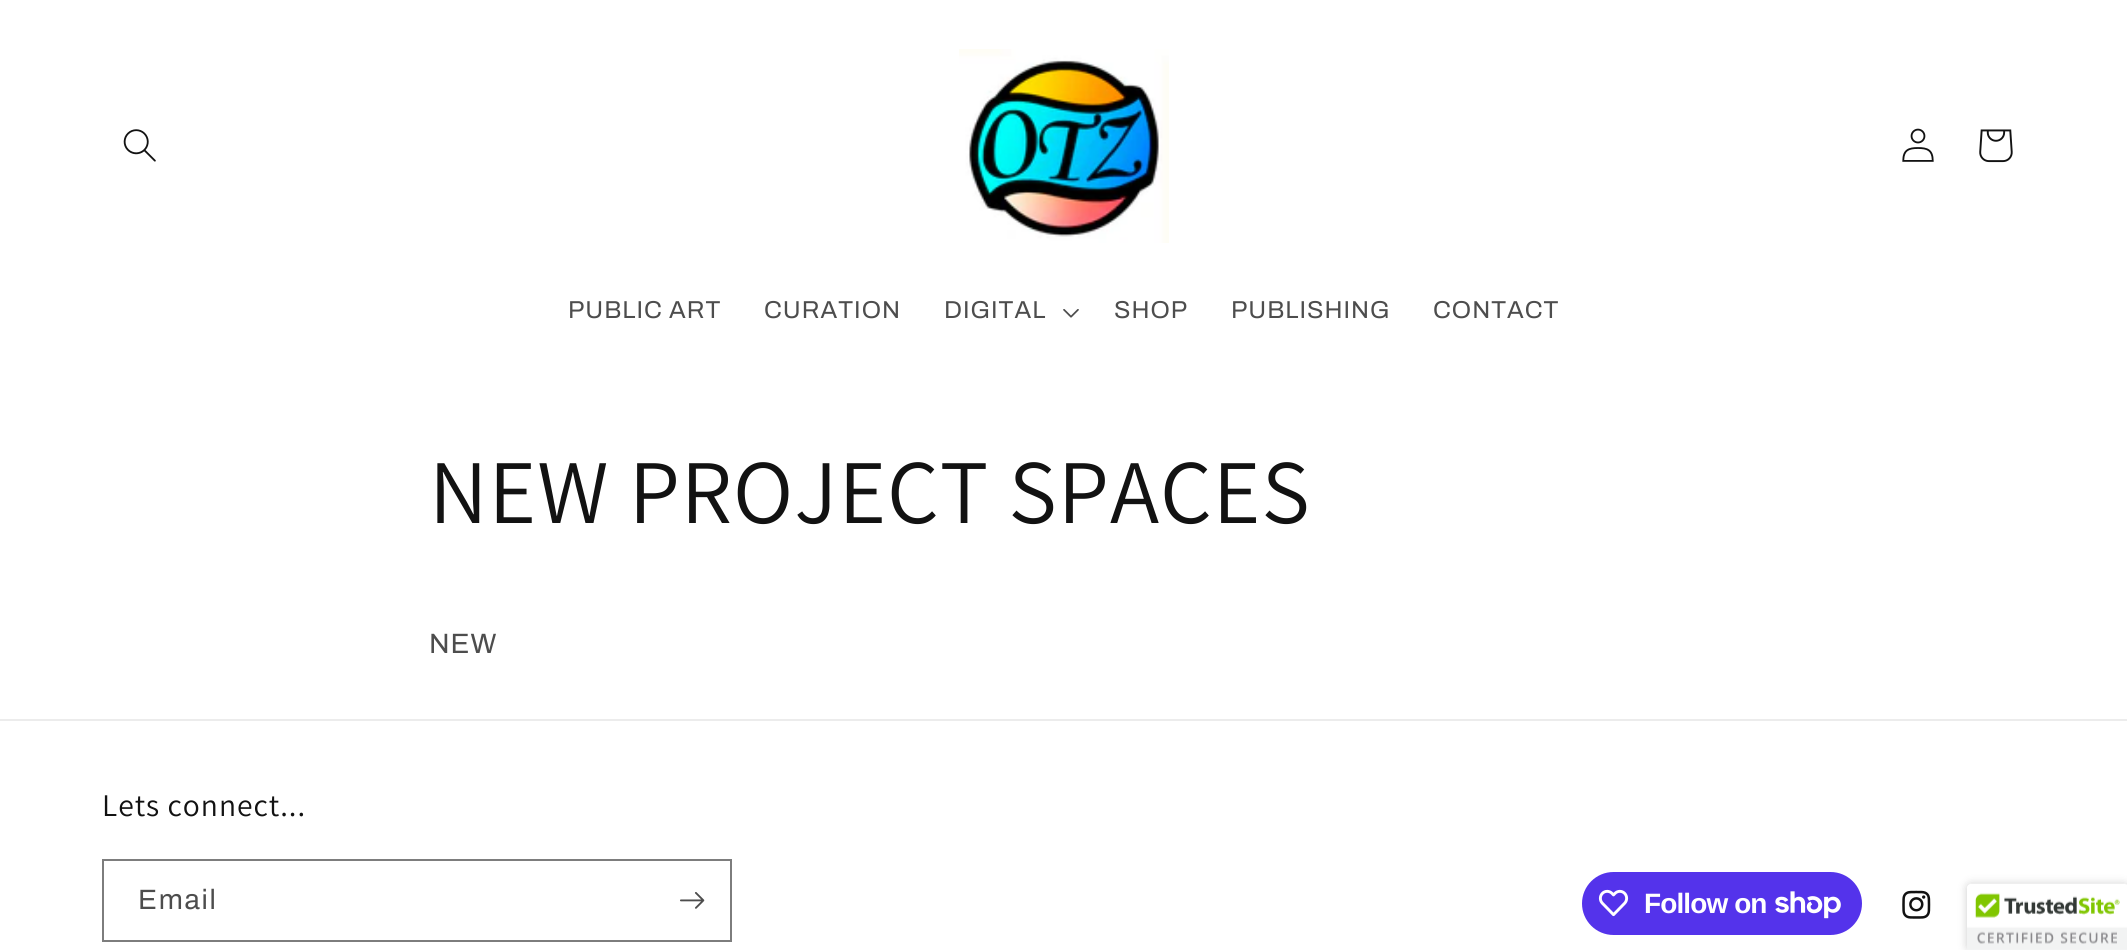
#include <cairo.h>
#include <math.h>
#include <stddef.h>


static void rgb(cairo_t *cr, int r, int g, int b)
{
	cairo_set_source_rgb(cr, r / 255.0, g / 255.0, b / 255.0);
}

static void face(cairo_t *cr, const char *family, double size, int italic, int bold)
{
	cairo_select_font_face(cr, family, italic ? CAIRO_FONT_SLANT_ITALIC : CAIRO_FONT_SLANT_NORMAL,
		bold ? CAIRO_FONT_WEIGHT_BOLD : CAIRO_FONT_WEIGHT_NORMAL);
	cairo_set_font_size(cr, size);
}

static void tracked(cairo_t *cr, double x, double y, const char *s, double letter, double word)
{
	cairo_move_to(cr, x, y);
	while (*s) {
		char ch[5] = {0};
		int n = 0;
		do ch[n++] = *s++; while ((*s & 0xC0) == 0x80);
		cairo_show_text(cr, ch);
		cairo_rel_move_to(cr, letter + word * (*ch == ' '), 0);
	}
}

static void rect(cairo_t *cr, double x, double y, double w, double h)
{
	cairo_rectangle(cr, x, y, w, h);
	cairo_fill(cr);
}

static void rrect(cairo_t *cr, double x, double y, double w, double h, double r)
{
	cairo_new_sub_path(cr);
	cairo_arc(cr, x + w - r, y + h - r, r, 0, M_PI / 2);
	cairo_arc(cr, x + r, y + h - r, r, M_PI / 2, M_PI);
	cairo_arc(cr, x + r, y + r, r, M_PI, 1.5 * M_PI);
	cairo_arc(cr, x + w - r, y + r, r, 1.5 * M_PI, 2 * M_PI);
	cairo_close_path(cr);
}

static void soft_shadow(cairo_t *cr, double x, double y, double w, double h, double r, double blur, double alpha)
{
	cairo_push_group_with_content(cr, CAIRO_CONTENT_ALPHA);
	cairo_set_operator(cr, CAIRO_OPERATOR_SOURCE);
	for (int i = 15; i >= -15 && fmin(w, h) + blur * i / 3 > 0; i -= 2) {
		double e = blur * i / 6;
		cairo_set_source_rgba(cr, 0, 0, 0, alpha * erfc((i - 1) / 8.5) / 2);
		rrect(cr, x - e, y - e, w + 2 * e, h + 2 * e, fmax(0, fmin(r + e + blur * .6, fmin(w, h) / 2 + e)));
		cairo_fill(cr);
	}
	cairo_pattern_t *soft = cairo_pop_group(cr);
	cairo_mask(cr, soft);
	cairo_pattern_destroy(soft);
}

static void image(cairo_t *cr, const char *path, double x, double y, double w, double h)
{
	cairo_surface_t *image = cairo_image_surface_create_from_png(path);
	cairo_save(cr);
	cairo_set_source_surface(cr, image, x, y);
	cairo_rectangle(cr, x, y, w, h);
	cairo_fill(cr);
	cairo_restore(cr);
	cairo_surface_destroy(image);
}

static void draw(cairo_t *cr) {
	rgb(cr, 255, 255, 255);
	cairo_paint(cr);
	image(cr, "image0.png", 123, 129, 33, 33);
	image(cr, "image1.png", 959, 49, 210, 194);
	image(cr, "image2.png", 1902, 128, 32, 34);
	image(cr, "image3.png", 1979, 129, 34, 34);
	face(cr, "Archivo", 24.5, 0, 0);
	rgb(cr, 77, 77, 77);
	tracked(cr, 568, 318, "PUBLIC ART", 1, 0);
	tracked(cr, 764, 318, "CURATION", 1, 0);
	tracked(cr, 944, 318, "DIGITAL", 1, 0);
	image(cr, "image4.png", 1063, 309, 16, 9);
	tracked(cr, 1114, 318, "SHOP", 1, 0);
	tracked(cr, 1231, 318, "PUBLISHING", 1, 0);
	tracked(cr, 1433, 318, "CONTACT", 1, 0);
	face(cr, "Assistant", 91, 0, 0);
	rgb(cr, 18, 18, 18);
	tracked(cr, 429, 523, "NEW PROJECT SPACES", 1, 0);
	face(cr, "Archivo", 28, 0, 0);
	rgb(cr, 77, 77, 77);
	tracked(cr, 429, 653, "NEW", 1, 0);
	rgb(cr, 236, 236, 236);
	rect(cr, 0, 719, 2127, 2);
	face(cr, "Assistant", 31.5, 0, 0);
	rgb(cr, 18, 18, 18);
	tracked(cr, 102, 816, "Lets connect...", 1, 0);
	cairo_rectangle(cr, 103, 860, 628, 81);
	rgb(cr, 125, 125, 125);
	cairo_stroke(cr);
	face(cr, "Archivo", 28, 0, 0);
	rgb(cr, 77, 77, 77);
	tracked(cr, 138, 909, "Email", 1.75, 0);
	image(cr, "image5.png", 680, 892, 25, 17);
	rgb(cr, 84, 51, 235);
	rrect(cr, 1582, 872, 280, 63, 31.5);
	cairo_fill(cr);
	image(cr, "image6.png", 1598, 889, 31, 28);
	face(cr, "Liberation Sans", 28, 0, 1);
	rgb(cr, 255, 255, 255);
	tracked(cr, 1644, 913, "Follow on", -0.9, 0);
	image(cr, "image7.png", 1775, 891, 66, 28);
	image(cr, "image8.png", 1902, 890, 29, 29);
	rgb(cr, 0, 0, 0);
	soft_shadow(cr, 1967, 884, 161, 66, 4, 4.5, 0.2);
	rgb(cr, 255, 255, 255);
	cairo_new_path(cr);
	cairo_move_to(cr, 1971, 884);
	cairo_line_to(cr, 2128, 884);
	cairo_line_to(cr, 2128, 950);
	cairo_line_to(cr, 1967, 950);
	cairo_line_to(cr, 1967, 888);
	cairo_curve_to(cr, 1967, 886, 1969, 884, 1971, 884);
	cairo_close_path(cr);
	cairo_fill(cr);
	image(cr, "image9.png", 1967, 883, 160, 67);
}

int main(void) {
	cairo_surface_t *surface = cairo_image_surface_create(CAIRO_FORMAT_RGB24, 2127, 950);
	cairo_t *cr = cairo_create(surface);
	cairo_font_options_t *options = cairo_font_options_create();
	cairo_font_options_set_hint_metrics(options, CAIRO_HINT_METRICS_OFF);
	cairo_font_options_set_hint_style(options, CAIRO_HINT_STYLE_NONE);
	cairo_set_font_options(cr, options);
	cairo_set_miter_limit(cr, 4);
	draw(cr);
	cairo_surface_write_to_png(surface, "render.png");
	cairo_font_options_destroy(options);
	cairo_destroy(cr);
	cairo_surface_destroy(surface);
	return 0;
}
